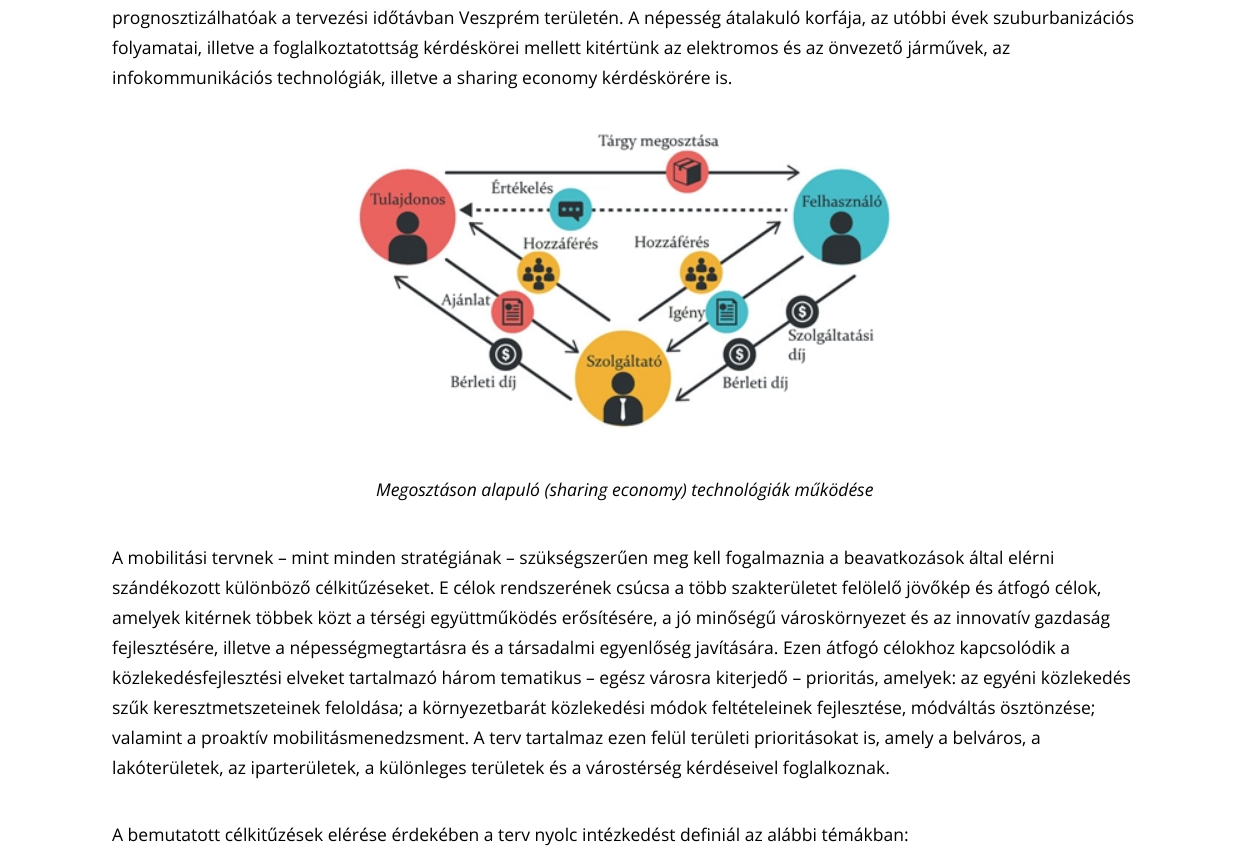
#include <cairo.h>
#include <math.h>
#include <stddef.h>


static void rgb(cairo_t *cr, int r, int g, int b)
{
	cairo_set_source_rgb(cr, r / 255.0, g / 255.0, b / 255.0);
}

static void face(cairo_t *cr, const char *family, double size, int italic, int bold)
{
	cairo_select_font_face(cr, family, italic ? CAIRO_FONT_SLANT_ITALIC : CAIRO_FONT_SLANT_NORMAL,
		bold ? CAIRO_FONT_WEIGHT_BOLD : CAIRO_FONT_WEIGHT_NORMAL);
	cairo_set_font_size(cr, size);
}

static void label(cairo_t *cr, double x, double y, const char *s)
{
	cairo_move_to(cr, x, y);
	cairo_show_text(cr, s);
}

static void image(cairo_t *cr, const char *path, double x, double y, double w, double h)
{
	cairo_surface_t *image = cairo_image_surface_create_from_png(path);
	cairo_save(cr);
	cairo_set_source_surface(cr, image, x, y);
	cairo_rectangle(cr, x, y, w, h);
	cairo_fill(cr);
	cairo_restore(cr);
	cairo_surface_destroy(image);
}

static void draw(cairo_t *cr) {
	rgb(cr, 255, 255, 255);
	cairo_paint(cr);
	face(cr, "Open Sans", 17.5, 0, 0);
	rgb(cr, 0, 0, 0);
	label(cr, 112, 24, "prognosztizálhatóak a tervezési időtávban Veszprém területén. A népesség átalakuló korfája, az utóbbi évek szuburbanizációs");
	label(cr, 112, 54, "folyamatai, illetve a foglalkoztatottság kérdéskörei mellett kitértünk az elektromos és az önvezető járművek, az");
	label(cr, 112, 84, "infokommunikációs technológiák, illetve a sharing economy kérdéskörére is.");
	image(cr, "image0.png", 357, 134, 535, 294);
	face(cr, "Open Sans", 17.5, 1, 0);
	label(cr, 376, 496, "Megosztáson alapuló (sharing economy) technológiák működése");
	face(cr, "Open Sans", 17.5, 0, 0);
	label(cr, 112, 564, "A mobilitási tervnek – mint minden stratégiának – szükségszerűen meg kell fogalmaznia a beavatkozások által elérni");
	label(cr, 112, 594, "szándékozott különböző célkitűzéseket. E célok rendszerének csúcsa a több szakterületet felölelő jövőkép és átfogó célok,");
	label(cr, 112, 624, "amelyek kitérnek többek közt a térségi együttműködés erősítésére, a jó minőségű városkörnyezet és az innovatív gazdaság");
	label(cr, 112, 654, "fejlesztésére, illetve a népességmegtartásra és a társadalmi egyenlőség javítására. Ezen átfogó célokhoz kapcsolódik a");
	label(cr, 112, 684, "közlekedésfejlesztési elveket tartalmazó három tematikus – egész városra kiterjedő – prioritás, amelyek: az egyéni közlekedés");
	label(cr, 112, 714, "szűk keresztmetszeteinek feloldása; a környezetbarát közlekedési módok feltételeinek fejlesztése, módváltás ösztönzése;");
	label(cr, 112, 744, "valamint a proaktív mobilitásmenedzsment. A terv tartalmaz ezen felül területi prioritásokat is, amely a belváros, a");
	label(cr, 112, 774, "lakóterületek, az iparterületek, a különleges területek és a várostérség kérdéseivel foglalkoznak.");
	label(cr, 112, 841, "A bemutatott célkitűzések elérése érdekében a terv nyolc intézkedést definiál az alábbi témákban:");
}

int main(void) {
	cairo_surface_t *surface = cairo_image_surface_create(CAIRO_FORMAT_RGB24, 1248, 866);
	cairo_t *cr = cairo_create(surface);
	cairo_font_options_t *options = cairo_font_options_create();
	cairo_font_options_set_hint_metrics(options, CAIRO_HINT_METRICS_OFF);
	cairo_font_options_set_hint_style(options, CAIRO_HINT_STYLE_NONE);
	cairo_set_font_options(cr, options);
	cairo_set_miter_limit(cr, 4);
	draw(cr);
	cairo_surface_write_to_png(surface, "render.png");
	cairo_font_options_destroy(options);
	cairo_destroy(cr);
	cairo_surface_destroy(surface);
	return 0;
}
